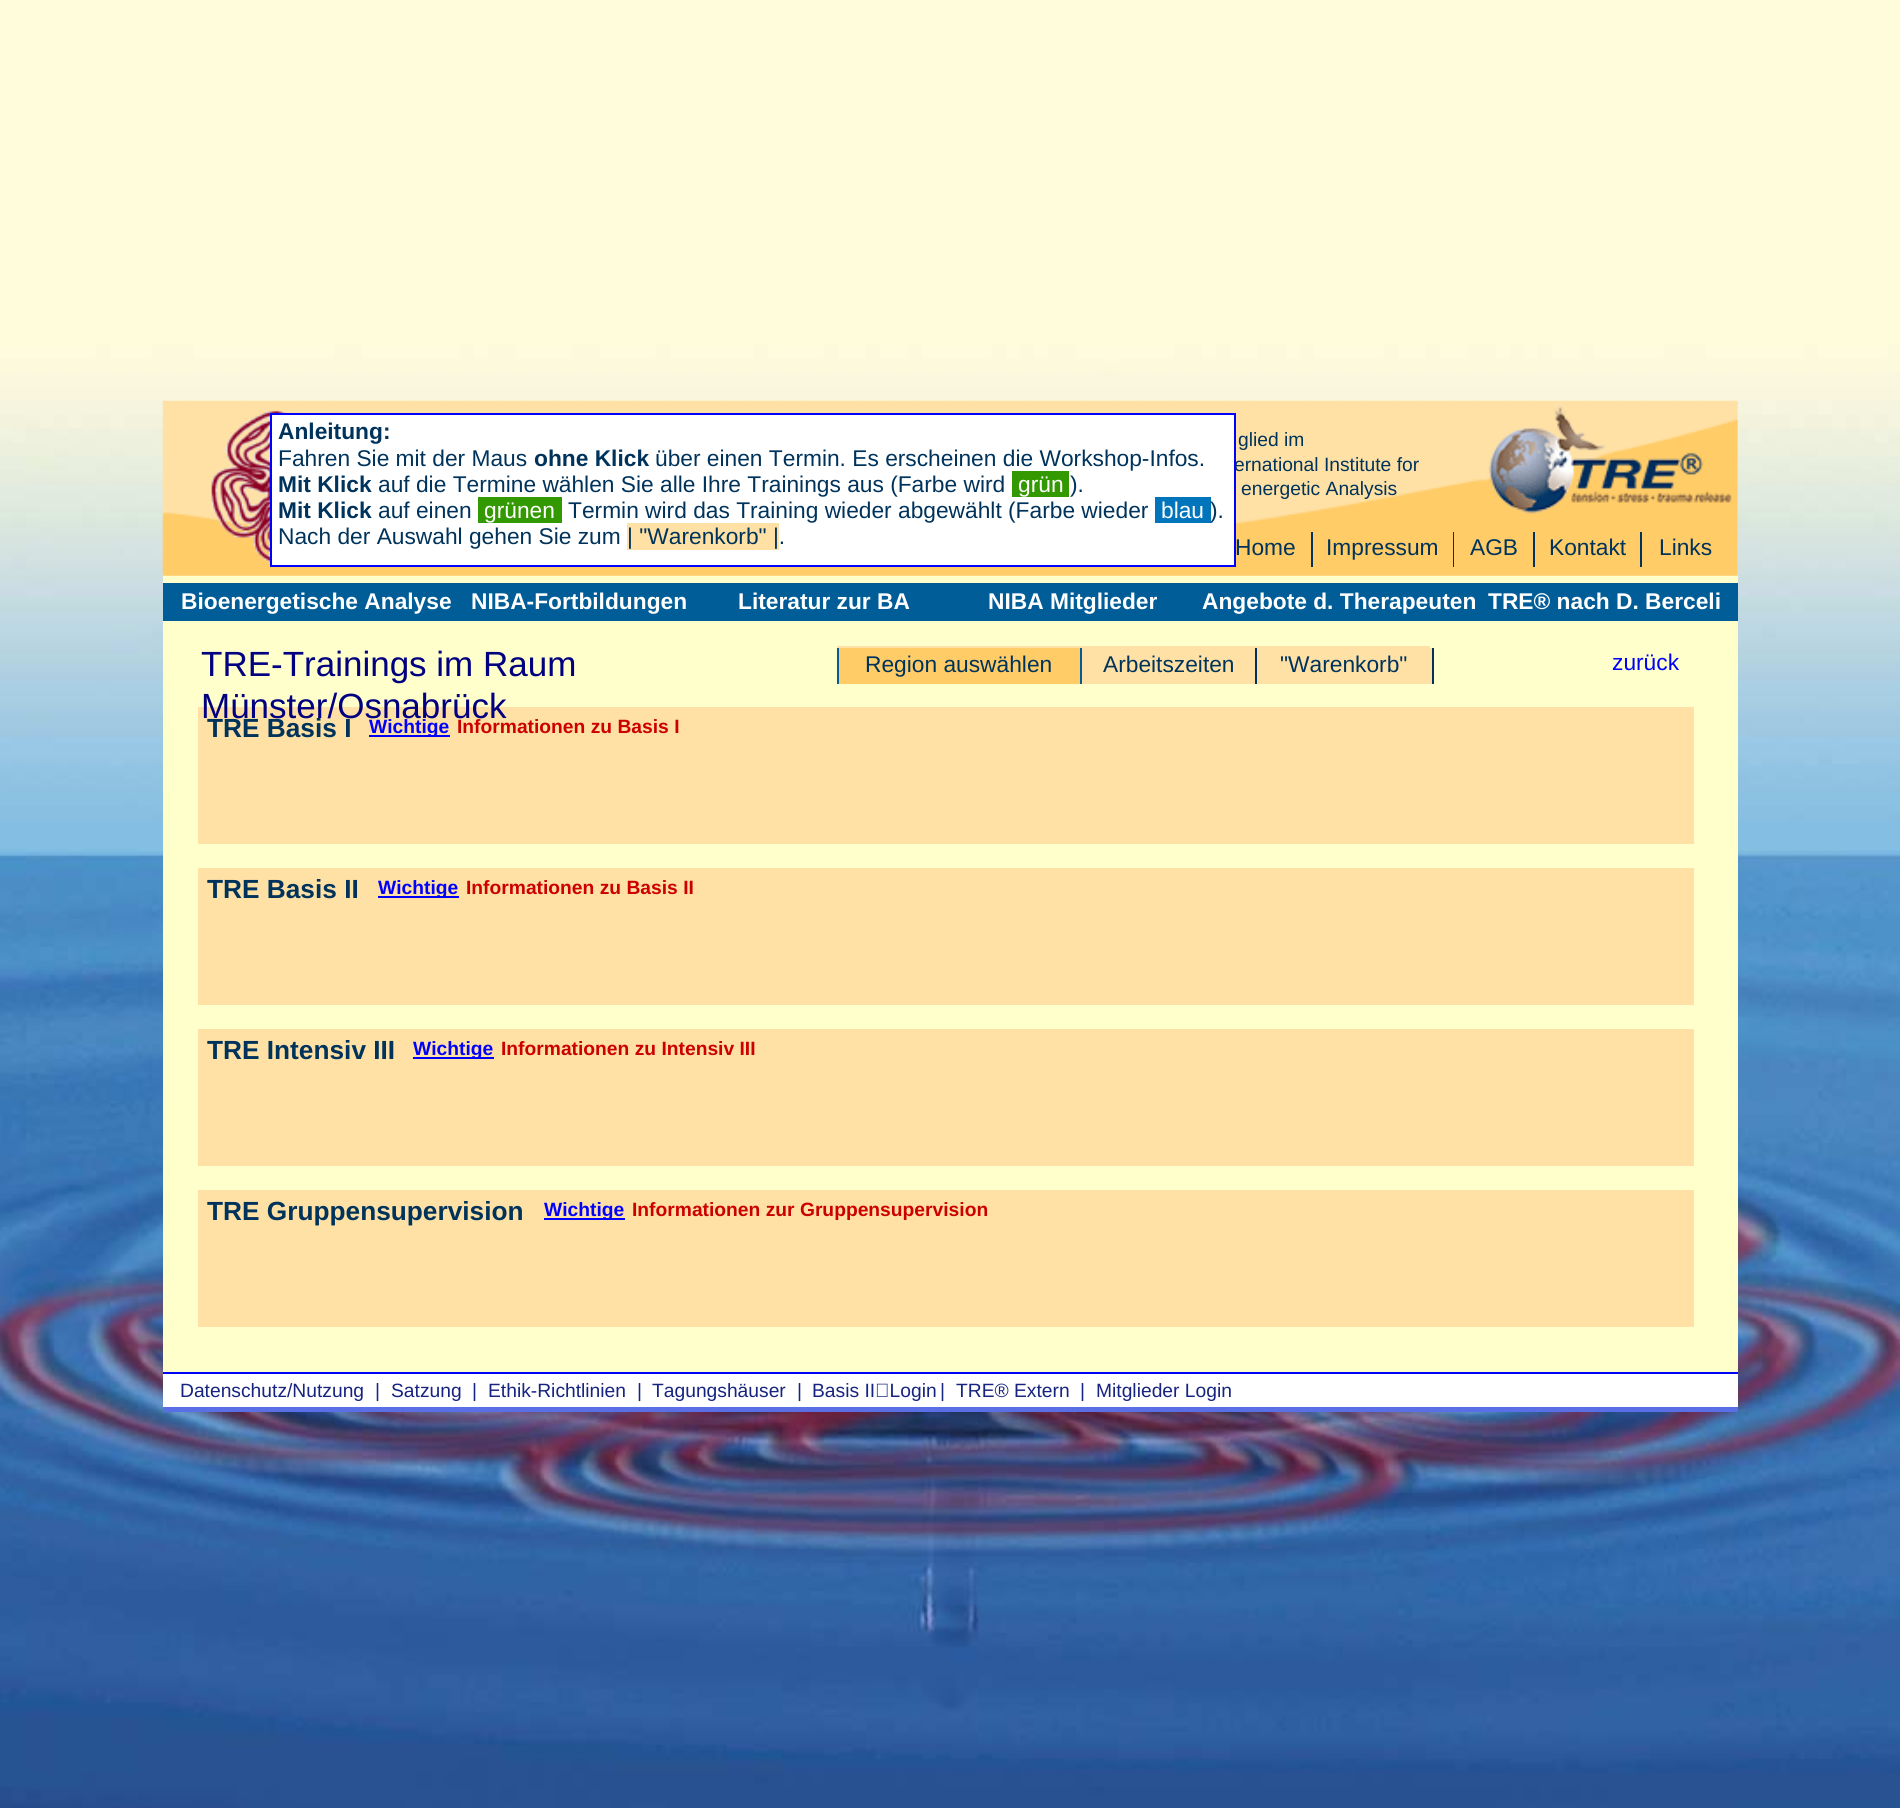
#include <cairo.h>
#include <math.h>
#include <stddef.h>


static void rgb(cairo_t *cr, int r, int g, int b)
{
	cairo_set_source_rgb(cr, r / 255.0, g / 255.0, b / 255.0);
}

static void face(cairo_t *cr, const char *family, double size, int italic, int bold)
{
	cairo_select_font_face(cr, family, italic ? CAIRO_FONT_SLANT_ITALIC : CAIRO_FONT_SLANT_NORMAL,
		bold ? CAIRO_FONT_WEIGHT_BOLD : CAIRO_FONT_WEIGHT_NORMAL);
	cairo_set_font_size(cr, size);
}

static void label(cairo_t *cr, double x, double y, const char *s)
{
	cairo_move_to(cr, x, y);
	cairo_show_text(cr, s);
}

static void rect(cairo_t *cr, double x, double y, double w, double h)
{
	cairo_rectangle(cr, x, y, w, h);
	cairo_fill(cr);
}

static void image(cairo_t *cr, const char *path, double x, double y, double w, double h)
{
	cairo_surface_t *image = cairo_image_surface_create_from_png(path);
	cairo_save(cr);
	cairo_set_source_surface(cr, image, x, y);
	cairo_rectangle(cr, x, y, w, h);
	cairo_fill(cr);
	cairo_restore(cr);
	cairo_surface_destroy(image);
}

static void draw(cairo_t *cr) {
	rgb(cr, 255, 255, 255);
	cairo_paint(cr);
	image(cr, "image0.png", 0, 0, 1900, 1808);
	rgb(cr, 255, 255, 204);
	rect(cr, 163, 401, 1575, 971);
	image(cr, "image1.png", 162, 400, 1576, 176);
	image(cr, "image2.png", 211, 410, 77, 153);
	face(cr, "Liberation Sans", 19.25, 0, 0);
	rgb(cr, 0, 51, 91);
	label(cr, 1234, 471, "ernational Institute for");
	rgb(cr, 255, 255, 255);
	cairo_rectangle(cr, 271, 414, 964, 152);
	cairo_fill_preserve(cr);
	rgb(cr, 0, 0, 255);
	cairo_stroke(cr);
	face(cr, "Liberation Sans", 22.75, 0, 1);
	rgb(cr, 0, 51, 91);
	label(cr, 278, 439, "Anleitung:");
	face(cr, "Liberation Sans", 22.75, 0, 0);
	label(cr, 278, 466, "Fahren Sie mit der Maus");
	face(cr, "Liberation Sans", 22.75, 0, 1);
	label(cr, 534, 466, "ohne Klick");
	face(cr, "Liberation Sans", 22.75, 0, 0);
	label(cr, 655, 466, "über einen Termin. Es erscheinen die Workshop-Infos.");
	face(cr, "Liberation Sans", 22.75, 0, 1);
	label(cr, 278, 492, "Mit Klick");
	face(cr, "Liberation Sans", 22.75, 0, 0);
	label(cr, 378, 492, "auf die Termine wählen Sie alle Ihre Trainings aus (Farbe wird");
	rgb(cr, 51, 153, 0);
	rect(cr, 1012, 471, 57, 26);
	rgb(cr, 255, 255, 255);
	label(cr, 1018, 492, "grün");
	rgb(cr, 0, 51, 91);
	label(cr, 1070, 492, ").");
	face(cr, "Liberation Sans", 22.75, 0, 1);
	label(cr, 278, 518, "Mit Klick");
	face(cr, "Liberation Sans", 22.75, 0, 0);
	label(cr, 378, 518, "auf einen");
	rgb(cr, 51, 153, 0);
	rect(cr, 478, 497, 84, 26);
	rgb(cr, 255, 255, 255);
	label(cr, 484, 518, "grünen");
	rgb(cr, 0, 51, 91);
	label(cr, 568, 518, "Termin wird das Training wieder abgewählt (Farbe wieder");
	rgb(cr, 0, 117, 187);
	rect(cr, 1155, 497, 56, 26);
	rgb(cr, 255, 255, 255);
	label(cr, 1161, 518, "blau");
	rgb(cr, 0, 51, 91);
	label(cr, 1210, 518, ").");
	label(cr, 278, 544, "Nach der Auswahl gehen Sie zum");
	rgb(cr, 255, 225, 165);
	rect(cr, 627, 523, 152, 27);
	rgb(cr, 0, 51, 91);
	label(cr, 627, 544, "| \"Warenkorb\" |.");
	face(cr, "Liberation Sans", 19.25, 0, 0);
	label(cr, 1238, 446, "glied im");
	label(cr, 1241, 495, "energetic Analysis");
	face(cr, "Liberation Sans", 22.75, 0, 0);
	label(cr, 1235, 555, "Home");
	rect(cr, 1311, 532, 2, 35);
	label(cr, 1326, 555, "Impressum");
	rect(cr, 1453, 532, 1, 35);
	label(cr, 1470, 555, "AGB");
	rect(cr, 1533, 532, 2, 35);
	label(cr, 1549, 555, "Kontakt");
	rect(cr, 1640, 532, 2, 35);
	label(cr, 1659, 555, "Links");
	rgb(cr, 0, 93, 151);
	rect(cr, 163, 583, 1575, 38);
	face(cr, "Liberation Sans", 22.75, 0, 1);
	rgb(cr, 255, 255, 255);
	label(cr, 181, 609, "Bioenergetische Analyse");
	label(cr, 471, 609, "NIBA-Fortbildungen");
	label(cr, 738, 609, "Literatur zur BA");
	label(cr, 988, 609, "NIBA Mitglieder");
	label(cr, 1202, 609, "Angebote d. Therapeuten");
	label(cr, 1488, 609, "TRE® nach D. Berceli");
	face(cr, "Liberation Sans", 35, 0, 0);
	rgb(cr, 0, 0, 128);
	label(cr, 201, 676, "TRE-Trainings im Raum");
	rgb(cr, 255, 225, 165);
	rect(cr, 198, 707, 1496, 137);
	rgb(cr, 0, 0, 128);
	label(cr, 201, 718, "Münster/Osnabrück");
	rgb(cr, 255, 225, 165);
	rect(cr, 837, 646, 243, 2);
	rgb(cr, 255, 204, 103);
	rect(cr, 839, 648, 241, 36);
	rgb(cr, 255, 225, 165);
	rect(cr, 1080, 646, 350, 38);
	rgb(cr, 0, 93, 151);
	rect(cr, 1080, 648, 2, 36);
	rect(cr, 837, 648, 2, 36);
	face(cr, "Liberation Sans", 22.75, 0, 0);
	rgb(cr, 0, 51, 91);
	label(cr, 865, 672, "Region auswählen");
	label(cr, 1103, 672, "Arbeitszeiten");
	rect(cr, 1432, 648, 2, 36);
	rect(cr, 1255, 648, 2, 36);
	rgb(cr, 255, 225, 165);
	rect(cr, 1430, 648, 2, 36);
	rgb(cr, 0, 51, 91);
	label(cr, 1280, 672, "\"Warenkorb\"");
	rgb(cr, 0, 0, 255);
	label(cr, 1612, 670, "zurück");
	face(cr, "Liberation Sans", 26.25, 0, 1);
	rgb(cr, 0, 51, 91);
	label(cr, 207, 737, "TRE Basis I");
	rgb(cr, 0, 0, 255);
	rect(cr, 369, 735, 81, 2);
	face(cr, "Liberation Sans", 19.25, 0, 1);
	label(cr, 369, 733, "Wichtige");
	rgb(cr, 204, 0, 0);
	label(cr, 457, 733, "Informationen zu Basis I");
	rgb(cr, 255, 225, 165);
	rect(cr, 198, 868, 1496, 137);
	face(cr, "Liberation Sans", 26.25, 0, 1);
	rgb(cr, 0, 51, 91);
	label(cr, 207, 898, "TRE Basis II");
	rgb(cr, 0, 0, 255);
	rect(cr, 378, 896, 81, 2);
	face(cr, "Liberation Sans", 19.25, 0, 1);
	label(cr, 378, 894, "Wichtige");
	rgb(cr, 204, 0, 0);
	label(cr, 466, 894, "Informationen zu Basis II");
	rgb(cr, 255, 225, 165);
	rect(cr, 198, 1029, 1496, 137);
	face(cr, "Liberation Sans", 26.25, 0, 1);
	rgb(cr, 0, 51, 91);
	label(cr, 207, 1059, "TRE Intensiv III");
	rgb(cr, 0, 0, 255);
	rect(cr, 413, 1057, 81, 2);
	face(cr, "Liberation Sans", 19.25, 0, 1);
	label(cr, 413, 1055, "Wichtige");
	rgb(cr, 204, 0, 0);
	label(cr, 501, 1055, "Informationen zu Intensiv III");
	rgb(cr, 255, 225, 165);
	rect(cr, 198, 1190, 1496, 137);
	face(cr, "Liberation Sans", 26.25, 0, 1);
	rgb(cr, 0, 51, 91);
	label(cr, 207, 1220, "TRE Gruppensupervision");
	rgb(cr, 0, 0, 255);
	rect(cr, 544, 1218, 81, 2);
	face(cr, "Liberation Sans", 19.25, 0, 1);
	label(cr, 544, 1216, "Wichtige");
	rgb(cr, 204, 0, 0);
	label(cr, 632, 1216, "Informationen zur Gruppensupervision");
	rgb(cr, 255, 255, 255);
	rect(cr, 163, 1374, 1575, 33);
	rgb(cr, 0, 0, 255);
	rect(cr, 163, 1372, 1575, 2);
	face(cr, "Liberation Sans", 19.25, 0, 0);
	rgb(cr, 22, 36, 127);
	label(cr, 180, 1397, "Datenschutz/Nutzung");
	label(cr, 375, 1397, "|");
	label(cr, 391, 1397, "Satzung");
	label(cr, 472, 1397, "|");
	label(cr, 488, 1397, "Ethik-Richtlinien");
	label(cr, 637, 1397, "|");
	label(cr, 652, 1397, "Tagungshäuser");
	label(cr, 797, 1397, "|");
	label(cr, 812, 1397, "Basis II‑Login");
	label(cr, 940, 1397, "|");
	label(cr, 956, 1397, "TRE® Extern");
	label(cr, 1080, 1397, "|");
	label(cr, 1096, 1397, "Mitglieder Login");
	rgb(cr, 90, 110, 230);
	rect(cr, 163, 1407, 1575, 5);
}

int main(void) {
	cairo_surface_t *surface = cairo_image_surface_create(CAIRO_FORMAT_RGB24, 1900, 1808);
	cairo_t *cr = cairo_create(surface);
	cairo_font_options_t *options = cairo_font_options_create();
	cairo_font_options_set_hint_metrics(options, CAIRO_HINT_METRICS_OFF);
	cairo_font_options_set_hint_style(options, CAIRO_HINT_STYLE_NONE);
	cairo_set_font_options(cr, options);
	cairo_set_miter_limit(cr, 4);
	draw(cr);
	cairo_surface_write_to_png(surface, "render.png");
	cairo_font_options_destroy(options);
	cairo_destroy(cr);
	cairo_surface_destroy(surface);
	return 0;
}
